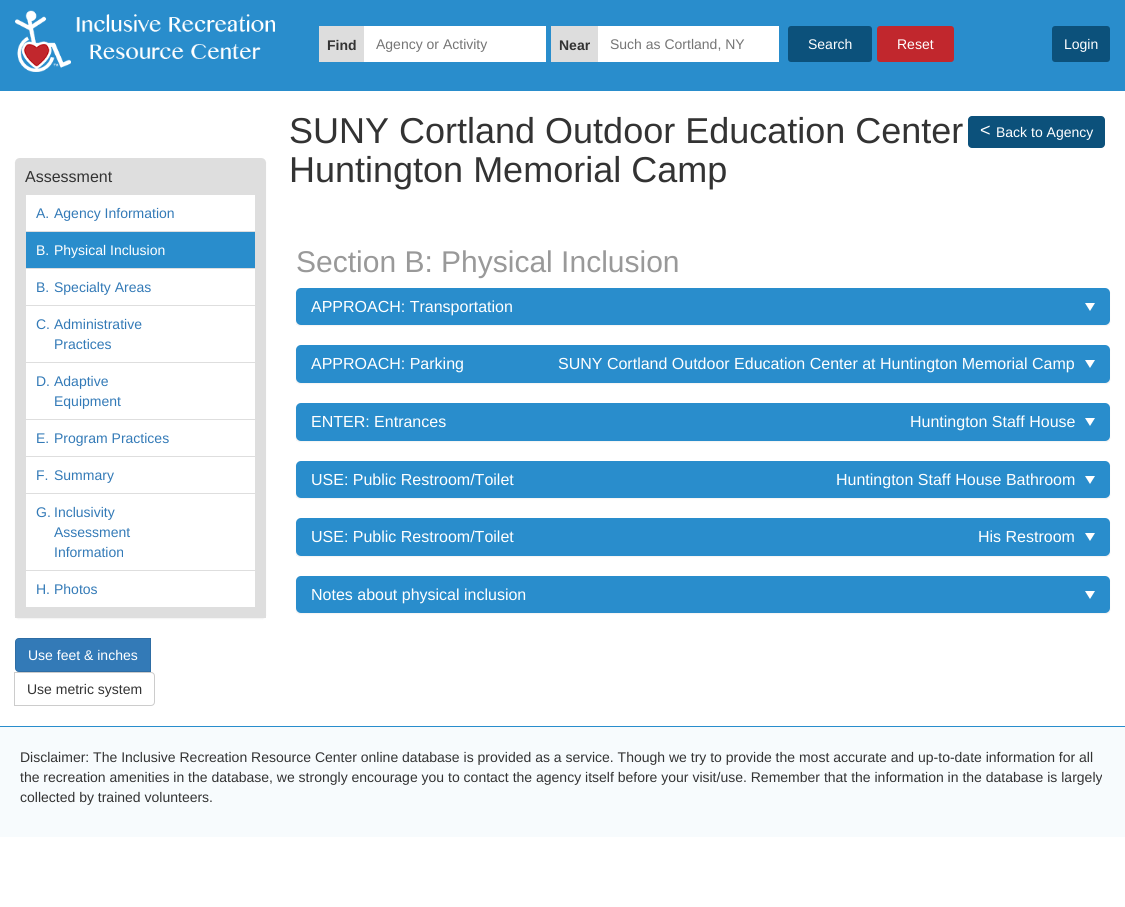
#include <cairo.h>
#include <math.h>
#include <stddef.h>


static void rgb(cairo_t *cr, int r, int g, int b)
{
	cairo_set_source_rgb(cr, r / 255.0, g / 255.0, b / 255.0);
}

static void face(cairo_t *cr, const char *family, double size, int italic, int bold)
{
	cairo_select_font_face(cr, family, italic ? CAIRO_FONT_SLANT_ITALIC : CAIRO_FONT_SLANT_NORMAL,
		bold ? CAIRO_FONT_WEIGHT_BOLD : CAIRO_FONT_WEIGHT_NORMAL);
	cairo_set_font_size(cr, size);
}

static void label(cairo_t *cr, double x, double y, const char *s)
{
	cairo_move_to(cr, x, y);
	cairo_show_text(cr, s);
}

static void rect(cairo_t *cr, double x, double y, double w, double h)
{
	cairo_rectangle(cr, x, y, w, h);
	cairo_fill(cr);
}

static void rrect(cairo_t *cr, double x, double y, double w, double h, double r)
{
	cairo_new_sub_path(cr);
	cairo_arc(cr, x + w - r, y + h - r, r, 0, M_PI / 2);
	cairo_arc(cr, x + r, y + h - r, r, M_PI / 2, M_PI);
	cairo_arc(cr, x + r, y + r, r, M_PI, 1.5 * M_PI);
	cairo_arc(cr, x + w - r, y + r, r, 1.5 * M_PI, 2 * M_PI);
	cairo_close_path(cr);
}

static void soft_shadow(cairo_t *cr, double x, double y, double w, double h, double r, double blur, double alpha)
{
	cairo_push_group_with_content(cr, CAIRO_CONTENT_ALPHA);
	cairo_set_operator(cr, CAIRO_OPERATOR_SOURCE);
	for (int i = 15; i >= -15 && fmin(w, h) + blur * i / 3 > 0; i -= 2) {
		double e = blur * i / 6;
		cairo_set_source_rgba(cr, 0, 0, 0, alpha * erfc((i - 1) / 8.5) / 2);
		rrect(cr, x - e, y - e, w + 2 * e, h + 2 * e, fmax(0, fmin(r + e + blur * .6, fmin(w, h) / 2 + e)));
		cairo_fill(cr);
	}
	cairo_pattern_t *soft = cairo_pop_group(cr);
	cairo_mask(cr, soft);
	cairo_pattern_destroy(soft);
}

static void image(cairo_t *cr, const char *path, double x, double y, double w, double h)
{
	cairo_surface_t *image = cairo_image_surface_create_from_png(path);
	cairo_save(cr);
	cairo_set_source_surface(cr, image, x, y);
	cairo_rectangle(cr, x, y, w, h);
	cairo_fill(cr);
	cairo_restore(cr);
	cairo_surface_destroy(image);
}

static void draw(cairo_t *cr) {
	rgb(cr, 255, 255, 255);
	cairo_paint(cr);
	rgb(cr, 41, 141, 204);
	rect(cr, 0, 0, 1125, 91);
	image(cr, "image0.png", 15, 10, 260, 62);
	rgb(cr, 255, 255, 255);
	rect(cr, 364, 26, 182, 36);
	rgb(cr, 221, 221, 221);
	rect(cr, 319, 26, 45, 36);
	face(cr, "Liberation Sans", 14, 0, 1);
	rgb(cr, 51, 51, 51);
	label(cr, 327, 50, "Find");
	face(cr, "Liberation Sans", 14, 0, 0);
	rgb(cr, 117, 117, 117);
	label(cr, 376, 49, "Agency or Activity");
	rgb(cr, 255, 255, 255);
	rect(cr, 598, 26, 181, 36);
	rgb(cr, 221, 221, 221);
	rect(cr, 551, 26, 47, 36);
	face(cr, "Liberation Sans", 14, 0, 1);
	rgb(cr, 51, 51, 51);
	label(cr, 559, 50, "Near");
	face(cr, "Liberation Sans", 14, 0, 0);
	rgb(cr, 117, 117, 117);
	label(cr, 610, 49, "Such as Cortland, NY");
	rgb(cr, 12, 81, 123);
	rrect(cr, 788, 26, 84, 36, 3);
	cairo_fill(cr);
	rgb(cr, 255, 255, 255);
	label(cr, 808, 49, "Search");
	rgb(cr, 193, 39, 45);
	rrect(cr, 877, 26, 77, 36, 3);
	cairo_fill(cr);
	rgb(cr, 255, 255, 255);
	label(cr, 897, 49, "Reset");
	rgb(cr, 12, 81, 123);
	rrect(cr, 1052, 26, 58, 36, 3);
	cairo_fill(cr);
	rgb(cr, 255, 255, 255);
	label(cr, 1064, 49, "Login");
	face(cr, "Liberation Sans", 36, 0, 0);
	rgb(cr, 51, 51, 51);
	label(cr, 289, 143, "SUNY Cortland Outdoor Education Center");
	rgb(cr, 12, 81, 123);
	rrect(cr, 968, 116, 137, 32, 4);
	cairo_fill(cr);
	face(cr, "Liberation Sans", 18, 0, 0);
	rgb(cr, 255, 255, 255);
	label(cr, 980, 136, "<");
	face(cr, "Liberation Sans", 14, 0, 0);
	label(cr, 996, 137, "Back to Agency");
	face(cr, "Liberation Sans", 36, 0, 0);
	rgb(cr, 51, 51, 51);
	label(cr, 289, 182, "Huntington Memorial Camp");
	rgb(cr, 0, 0, 0);
	soft_shadow(cr, 15, 159, 251, 460, 4, 0.5, 0.05);
	rgb(cr, 255, 255, 255);
	rrect(cr, 15, 158, 251, 460, 4);
	cairo_fill(cr);
	rgb(cr, 222, 222, 222);
	cairo_new_path(cr);
	cairo_move_to(cr, 20, 158);
	cairo_line_to(cr, 261, 158);
	cairo_curve_to(cr, 264, 158, 266, 160, 266, 163);
	cairo_line_to(cr, 266, 195);
	cairo_line_to(cr, 15, 195);
	cairo_line_to(cr, 15, 163);
	cairo_curve_to(cr, 15, 160, 17, 158, 20, 158);
	cairo_close_path(cr);
	cairo_fill(cr);
	face(cr, "Liberation Sans", 16, 0, 0);
	rgb(cr, 51, 51, 51);
	label(cr, 25, 182, "Assessment");
	rgb(cr, 222, 222, 222);
	rect(cr, 15, 195, 251, 423);
	rgb(cr, 255, 255, 255);
	rect(cr, 26, 195, 229, 412);
	face(cr, "Liberation Sans", 14, 0, 0);
	rgb(cr, 51, 122, 183);
	label(cr, 36, 218, "A.");
	label(cr, 54, 218, "Agency Information");
	rgb(cr, 222, 222, 222);
	rect(cr, 26, 231, 229, 1);
	rgb(cr, 41, 141, 204);
	rect(cr, 26, 232, 229, 36);
	rgb(cr, 255, 255, 255);
	label(cr, 36, 255, "B.");
	label(cr, 54, 255, "Physical Inclusion");
	rgb(cr, 222, 222, 222);
	rect(cr, 26, 268, 229, 1);
	rgb(cr, 51, 122, 183);
	label(cr, 36, 292, "B.");
	label(cr, 54, 292, "Specialty Areas");
	rgb(cr, 222, 222, 222);
	rect(cr, 26, 305, 229, 1);
	rgb(cr, 51, 122, 183);
	label(cr, 36, 329, "C.");
	label(cr, 54, 329, "Administrative");
	label(cr, 54, 349, "Practices");
	rgb(cr, 222, 222, 222);
	rect(cr, 26, 362, 229, 1);
	rgb(cr, 51, 122, 183);
	label(cr, 36, 386, "D.");
	label(cr, 54, 386, "Adaptive");
	label(cr, 54, 406, "Equipment");
	rgb(cr, 222, 222, 222);
	rect(cr, 26, 419, 229, 1);
	rgb(cr, 51, 122, 183);
	label(cr, 36, 443, "E.");
	label(cr, 54, 443, "Program Practices");
	rgb(cr, 222, 222, 222);
	rect(cr, 26, 456, 229, 1);
	rgb(cr, 51, 122, 183);
	label(cr, 36, 480, "F.");
	label(cr, 54, 480, "Summary");
	rgb(cr, 222, 222, 222);
	rect(cr, 26, 493, 229, 1);
	rgb(cr, 51, 122, 183);
	label(cr, 36, 517, "G.");
	label(cr, 54, 517, "Inclusivity");
	label(cr, 54, 537, "Assessment");
	label(cr, 54, 557, "Information");
	rgb(cr, 222, 222, 222);
	rect(cr, 26, 570, 229, 1);
	rgb(cr, 51, 122, 183);
	label(cr, 36, 594, "H.");
	label(cr, 54, 594, "Photos");
	cairo_new_path(cr);
	cairo_move_to(cr, 19, 638.5);
	cairo_line_to(cr, 150.5, 638.5);
	cairo_line_to(cr, 150.5, 671.5);
	cairo_line_to(cr, 19, 671.5);
	cairo_curve_to(cr, 17, 671.5, 15.5, 670, 15.5, 668);
	cairo_line_to(cr, 15.5, 642);
	cairo_curve_to(cr, 15.5, 640, 17, 638.5, 19, 638.5);
	cairo_close_path(cr);
	cairo_fill_preserve(cr);
	rgb(cr, 46, 109, 164);
	cairo_set_line_width(cr, 1);
	cairo_stroke(cr);
	rgb(cr, 255, 255, 255);
	label(cr, 28, 660, "Use feet & inches");
	cairo_new_path(cr);
	cairo_move_to(cr, 14.5, 672.5);
	cairo_line_to(cr, 151, 672.5);
	cairo_curve_to(cr, 153, 672.5, 154.5, 674, 154.5, 676);
	cairo_line_to(cr, 154.5, 702);
	cairo_curve_to(cr, 154.5, 704, 153, 705.5, 151, 705.5);
	cairo_line_to(cr, 14.5, 705.5);
	cairo_close_path(cr);
	rgb(cr, 204, 204, 204);
	cairo_stroke(cr);
	rgb(cr, 51, 51, 51);
	label(cr, 27, 694, "Use metric system");
	face(cr, "Liberation Sans", 30, 0, 0);
	rgb(cr, 153, 153, 153);
	label(cr, 296, 272, "Section B: Physical Inclusion");
	rgb(cr, 0, 0, 0);
	soft_shadow(cr, 296, 289, 814, 37, 4, 0.5, 0.05);
	rgb(cr, 255, 255, 255);
	rrect(cr, 296, 288, 814, 37, 4);
	cairo_fill(cr);
	rgb(cr, 245, 245, 245);
	cairo_new_path(cr);
	cairo_move_to(cr, 301, 288);
	cairo_line_to(cr, 1105, 288);
	cairo_curve_to(cr, 1108, 288, 1110, 290, 1110, 293);
	cairo_line_to(cr, 1110, 325);
	cairo_line_to(cr, 296, 325);
	cairo_line_to(cr, 296, 293);
	cairo_curve_to(cr, 296, 290, 298, 288, 301, 288);
	cairo_close_path(cr);
	cairo_fill(cr);
	rgb(cr, 41, 141, 204);
	rrect(cr, 296, 288, 814, 37, 5);
	cairo_fill(cr);
	face(cr, "Liberation Sans", 16, 0, 0);
	rgb(cr, 255, 255, 255);
	label(cr, 311, 312, "APPROACH: Transportation");
	cairo_new_path(cr);
	cairo_move_to(cr, 1085, 303);
	cairo_line_to(cr, 1095, 303);
	cairo_line_to(cr, 1090, 311);
	cairo_close_path(cr);
	cairo_fill(cr);
	rgb(cr, 0, 0, 0);
	soft_shadow(cr, 296, 346, 814, 38, 4, 0.5, 0.05);
	rgb(cr, 255, 255, 255);
	rrect(cr, 296, 345, 814, 38, 4);
	cairo_fill(cr);
	rgb(cr, 245, 245, 245);
	cairo_new_path(cr);
	cairo_move_to(cr, 301, 345);
	cairo_line_to(cr, 1105, 345);
	cairo_curve_to(cr, 1108, 345, 1110, 347, 1110, 350);
	cairo_line_to(cr, 1110, 383);
	cairo_line_to(cr, 296, 383);
	cairo_line_to(cr, 296, 350);
	cairo_curve_to(cr, 296, 347, 298, 345, 301, 345);
	cairo_close_path(cr);
	cairo_fill(cr);
	rgb(cr, 41, 141, 204);
	rrect(cr, 296, 345, 814, 38, 5);
	cairo_fill(cr);
	rgb(cr, 255, 255, 255);
	label(cr, 311, 369, "APPROACH: Parking");
	label(cr, 558, 369, "SUNY Cortland Outdoor Education Center at Huntington Memorial Camp");
	cairo_new_path(cr);
	cairo_move_to(cr, 1085, 360);
	cairo_line_to(cr, 1095, 360);
	cairo_line_to(cr, 1090, 368);
	cairo_close_path(cr);
	cairo_fill(cr);
	rgb(cr, 0, 0, 0);
	soft_shadow(cr, 296, 404, 814, 38, 4, 0.5, 0.05);
	rgb(cr, 255, 255, 255);
	rrect(cr, 296, 403, 814, 38, 4);
	cairo_fill(cr);
	rgb(cr, 245, 245, 245);
	cairo_new_path(cr);
	cairo_move_to(cr, 301, 403);
	cairo_line_to(cr, 1105, 403);
	cairo_curve_to(cr, 1108, 403, 1110, 405, 1110, 408);
	cairo_line_to(cr, 1110, 441);
	cairo_line_to(cr, 296, 441);
	cairo_line_to(cr, 296, 408);
	cairo_curve_to(cr, 296, 405, 298, 403, 301, 403);
	cairo_close_path(cr);
	cairo_fill(cr);
	rgb(cr, 41, 141, 204);
	rrect(cr, 296, 403, 814, 38, 5);
	cairo_fill(cr);
	rgb(cr, 255, 255, 255);
	label(cr, 311, 427, "ENTER: Entrances");
	label(cr, 910, 427, "Huntington Staff House");
	cairo_new_path(cr);
	cairo_move_to(cr, 1085, 418);
	cairo_line_to(cr, 1095, 418);
	cairo_line_to(cr, 1090, 426);
	cairo_close_path(cr);
	cairo_fill(cr);
	rgb(cr, 0, 0, 0);
	soft_shadow(cr, 296, 462, 814, 37, 4, 0.5, 0.05);
	rgb(cr, 255, 255, 255);
	rrect(cr, 296, 461, 814, 37, 4);
	cairo_fill(cr);
	rgb(cr, 245, 245, 245);
	cairo_new_path(cr);
	cairo_move_to(cr, 301, 461);
	cairo_line_to(cr, 1105, 461);
	cairo_curve_to(cr, 1108, 461, 1110, 463, 1110, 466);
	cairo_line_to(cr, 1110, 498);
	cairo_line_to(cr, 296, 498);
	cairo_line_to(cr, 296, 466);
	cairo_curve_to(cr, 296, 463, 298, 461, 301, 461);
	cairo_close_path(cr);
	cairo_fill(cr);
	rgb(cr, 41, 141, 204);
	rrect(cr, 296, 461, 814, 37, 5);
	cairo_fill(cr);
	rgb(cr, 255, 255, 255);
	label(cr, 311, 485, "USE: Public Restroom/Toilet");
	label(cr, 836, 485, "Huntington Staff House Bathroom");
	cairo_new_path(cr);
	cairo_move_to(cr, 1085, 476);
	cairo_line_to(cr, 1095, 476);
	cairo_line_to(cr, 1090, 484);
	cairo_close_path(cr);
	cairo_fill(cr);
	rgb(cr, 0, 0, 0);
	soft_shadow(cr, 296, 519, 814, 38, 4, 0.5, 0.05);
	rgb(cr, 255, 255, 255);
	rrect(cr, 296, 518, 814, 38, 4);
	cairo_fill(cr);
	rgb(cr, 245, 245, 245);
	cairo_new_path(cr);
	cairo_move_to(cr, 301, 518);
	cairo_line_to(cr, 1105, 518);
	cairo_curve_to(cr, 1108, 518, 1110, 520, 1110, 523);
	cairo_line_to(cr, 1110, 556);
	cairo_line_to(cr, 296, 556);
	cairo_line_to(cr, 296, 523);
	cairo_curve_to(cr, 296, 520, 298, 518, 301, 518);
	cairo_close_path(cr);
	cairo_fill(cr);
	rgb(cr, 41, 141, 204);
	rrect(cr, 296, 518, 814, 38, 5);
	cairo_fill(cr);
	rgb(cr, 255, 255, 255);
	label(cr, 311, 542, "USE: Public Restroom/Toilet");
	label(cr, 978, 542, "His Restroom");
	cairo_new_path(cr);
	cairo_move_to(cr, 1085, 533);
	cairo_line_to(cr, 1095, 533);
	cairo_line_to(cr, 1090, 541);
	cairo_close_path(cr);
	cairo_fill(cr);
	rgb(cr, 0, 0, 0);
	soft_shadow(cr, 296, 577, 814, 37, 4, 0.5, 0.05);
	rgb(cr, 255, 255, 255);
	rrect(cr, 296, 576, 814, 37, 4);
	cairo_fill(cr);
	rgb(cr, 245, 245, 245);
	cairo_new_path(cr);
	cairo_move_to(cr, 301, 576);
	cairo_line_to(cr, 1105, 576);
	cairo_curve_to(cr, 1108, 576, 1110, 578, 1110, 581);
	cairo_line_to(cr, 1110, 613);
	cairo_line_to(cr, 296, 613);
	cairo_line_to(cr, 296, 581);
	cairo_curve_to(cr, 296, 578, 298, 576, 301, 576);
	cairo_close_path(cr);
	cairo_fill(cr);
	rgb(cr, 41, 141, 204);
	rrect(cr, 296, 576, 814, 37, 5);
	cairo_fill(cr);
	rgb(cr, 255, 255, 255);
	label(cr, 311, 600, "Notes about physical inclusion");
	cairo_new_path(cr);
	cairo_move_to(cr, 1085, 591);
	cairo_line_to(cr, 1095, 591);
	cairo_line_to(cr, 1090, 599);
	cairo_close_path(cr);
	cairo_fill(cr);
	rgb(cr, 247, 251, 253);
	rect(cr, 0, 727, 1125, 110);
	rgb(cr, 41, 141, 204);
	rect(cr, 0, 726, 1125, 1);
	face(cr, "Liberation Sans", 14, 0, 0);
	rgb(cr, 51, 51, 51);
	label(cr, 20, 762, "Disclaimer: The Inclusive Recreation Resource Center online database is provided as a service. Though we try to provide the most accurate and up-to-date information for all");
	label(cr, 20, 782, "the recreation amenities in the database, we strongly encourage you to contact the agency itself before your visit/use. Remember that the information in the database is largely");
	label(cr, 20, 802, "collected by trained volunteers.");
}

int main(void) {
	cairo_surface_t *surface = cairo_image_surface_create(CAIRO_FORMAT_RGB24, 1125, 907);
	cairo_t *cr = cairo_create(surface);
	cairo_font_options_t *options = cairo_font_options_create();
	cairo_font_options_set_hint_metrics(options, CAIRO_HINT_METRICS_OFF);
	cairo_font_options_set_hint_style(options, CAIRO_HINT_STYLE_NONE);
	cairo_set_font_options(cr, options);
	cairo_set_miter_limit(cr, 4);
	draw(cr);
	cairo_surface_write_to_png(surface, "render.png");
	cairo_font_options_destroy(options);
	cairo_destroy(cr);
	cairo_surface_destroy(surface);
	return 0;
}
